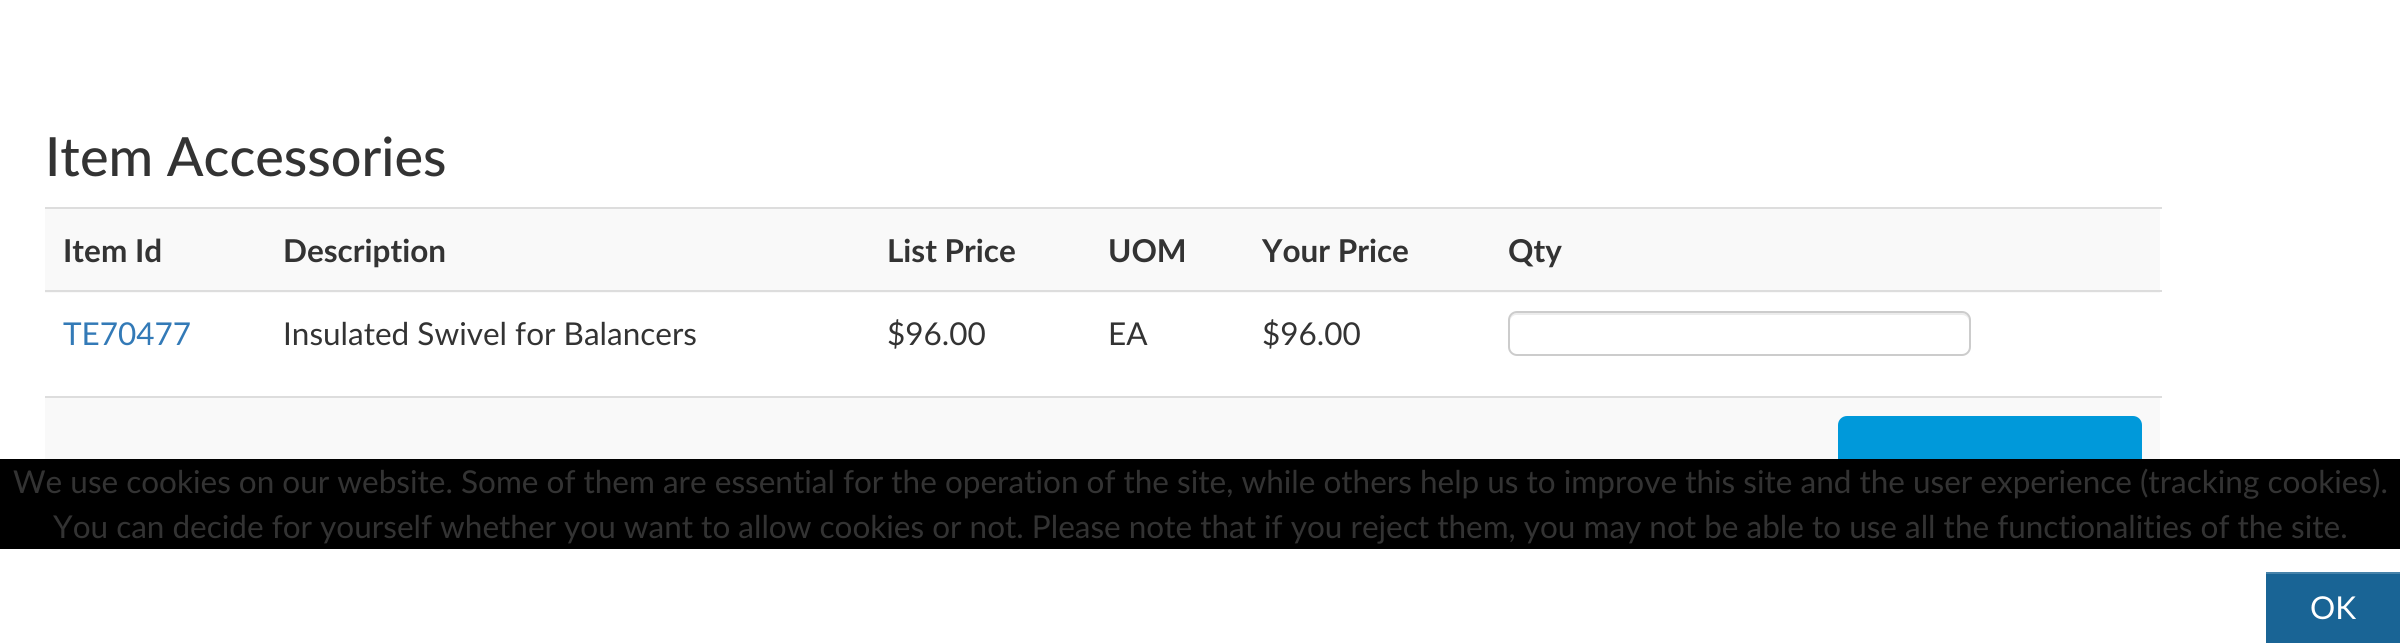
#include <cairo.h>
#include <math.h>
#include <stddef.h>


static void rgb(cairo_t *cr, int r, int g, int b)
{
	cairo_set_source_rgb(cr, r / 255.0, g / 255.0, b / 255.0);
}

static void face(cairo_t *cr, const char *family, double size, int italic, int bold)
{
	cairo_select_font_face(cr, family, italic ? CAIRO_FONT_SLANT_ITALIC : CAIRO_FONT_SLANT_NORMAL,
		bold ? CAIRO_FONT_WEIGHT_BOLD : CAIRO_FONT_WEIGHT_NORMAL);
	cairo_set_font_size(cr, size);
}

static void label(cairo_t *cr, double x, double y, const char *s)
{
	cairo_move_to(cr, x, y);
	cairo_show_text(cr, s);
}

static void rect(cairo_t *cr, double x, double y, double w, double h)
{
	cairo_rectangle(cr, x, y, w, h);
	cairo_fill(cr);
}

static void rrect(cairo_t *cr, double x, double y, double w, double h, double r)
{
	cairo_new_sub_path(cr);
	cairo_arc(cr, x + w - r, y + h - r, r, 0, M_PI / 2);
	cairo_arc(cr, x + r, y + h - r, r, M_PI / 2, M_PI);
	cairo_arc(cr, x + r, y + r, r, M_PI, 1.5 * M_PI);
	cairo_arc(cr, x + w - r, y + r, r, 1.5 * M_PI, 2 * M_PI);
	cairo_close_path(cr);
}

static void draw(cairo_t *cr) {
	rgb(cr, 255, 255, 255);
	cairo_paint(cr);
	face(cr, "Lato Medium", 54, 0, 0);
	rgb(cr, 51, 51, 51);
	label(cr, 45, 176, "Item Accessories");
	rgb(cr, 249, 249, 249);
	rect(cr, 45, 209, 2115, 84);
	face(cr, "Lato", 31.5, 0, 1);
	rgb(cr, 51, 51, 51);
	label(cr, 63, 262, "Item Id");
	label(cr, 283, 262, "Description");
	label(cr, 887, 262, "List Price");
	label(cr, 1108, 262, "UOM");
	label(cr, 1262, 262, "Your Price");
	rgb(cr, 221, 221, 221);
	rect(cr, 45, 207, 2117, 2);
	rgb(cr, 51, 51, 51);
	label(cr, 1508, 262, "Qty");
	rgb(cr, 221, 221, 221);
	rect(cr, 45, 290, 2117, 2);
	rgb(cr, 236, 236, 236);
	cairo_new_path(cr);
	cairo_move_to(cr, 1516, 315);
	cairo_line_to(cr, 1962, 315);
	cairo_curve_to(cr, 1966, 315, 1969, 318, 1969, 322);
	cairo_line_to(cr, 1969, 320);
	cairo_curve_to(cr, 1969, 316, 1966, 313, 1962, 313);
	cairo_line_to(cr, 1517, 313);
	cairo_curve_to(cr, 1513, 313, 1510, 316, 1510, 320);
	cairo_line_to(cr, 1510, 322);
	cairo_curve_to(cr, 1510, 318, 1513, 315, 1516, 315);
	cairo_close_path(cr);
	cairo_fill(cr);
	rrect(cr, 1509, 312, 461, 43, 8);
	rgb(cr, 204, 204, 204);
	cairo_stroke(cr);
	face(cr, "Lato", 31.5, 0, 0);
	rgb(cr, 51, 122, 183);
	label(cr, 63, 345, "TE70477");
	rgb(cr, 51, 51, 51);
	label(cr, 283, 345, "Insulated Swivel for Balancers");
	label(cr, 887, 345, "$96.00");
	label(cr, 1108, 345, "EA");
	label(cr, 1262, 345, "$96.00");
	rgb(cr, 249, 249, 249);
	rect(cr, 45, 398, 2115, 61);
	rgb(cr, 221, 221, 221);
	rect(cr, 45, 396, 2117, 2);
	rgb(cr, 0, 153, 218);
	rrect(cr, 1839, 417, 302, 75, 8);
	cairo_fill_preserve(cr);
	cairo_stroke(cr);
	rgb(cr, 0, 0, 0);
	rect(cr, 0, 459, 2400, 90);
	rgb(cr, 51, 51, 51);
	label(cr, 13, 493, "We use cookies on our website. Some of them are essential for the operation of the site, while others help us to improve this site and the user experience (tracking cookies).");
	label(cr, 53, 538, "You can decide for yourself whether you want to allow cookies or not. Please note that if you reject them, you may not be able to use all the functionalities of the site.");
	rgb(cr, 25, 100, 149);
	rect(cr, 2266, 574, 134, 69);
	rgb(cr, 71, 131, 170);
	rect(cr, 2266, 572, 134, 2);
	rgb(cr, 255, 255, 255);
	label(cr, 2310, 619, "OK");
}

int main(void) {
	cairo_surface_t *surface = cairo_image_surface_create(CAIRO_FORMAT_RGB24, 2400, 643);
	cairo_t *cr = cairo_create(surface);
	cairo_font_options_t *options = cairo_font_options_create();
	cairo_font_options_set_hint_metrics(options, CAIRO_HINT_METRICS_OFF);
	cairo_font_options_set_hint_style(options, CAIRO_HINT_STYLE_NONE);
	cairo_set_font_options(cr, options);
	cairo_set_miter_limit(cr, 4);
	draw(cr);
	cairo_surface_write_to_png(surface, "render.png");
	cairo_font_options_destroy(options);
	cairo_destroy(cr);
	cairo_surface_destroy(surface);
	return 0;
}
